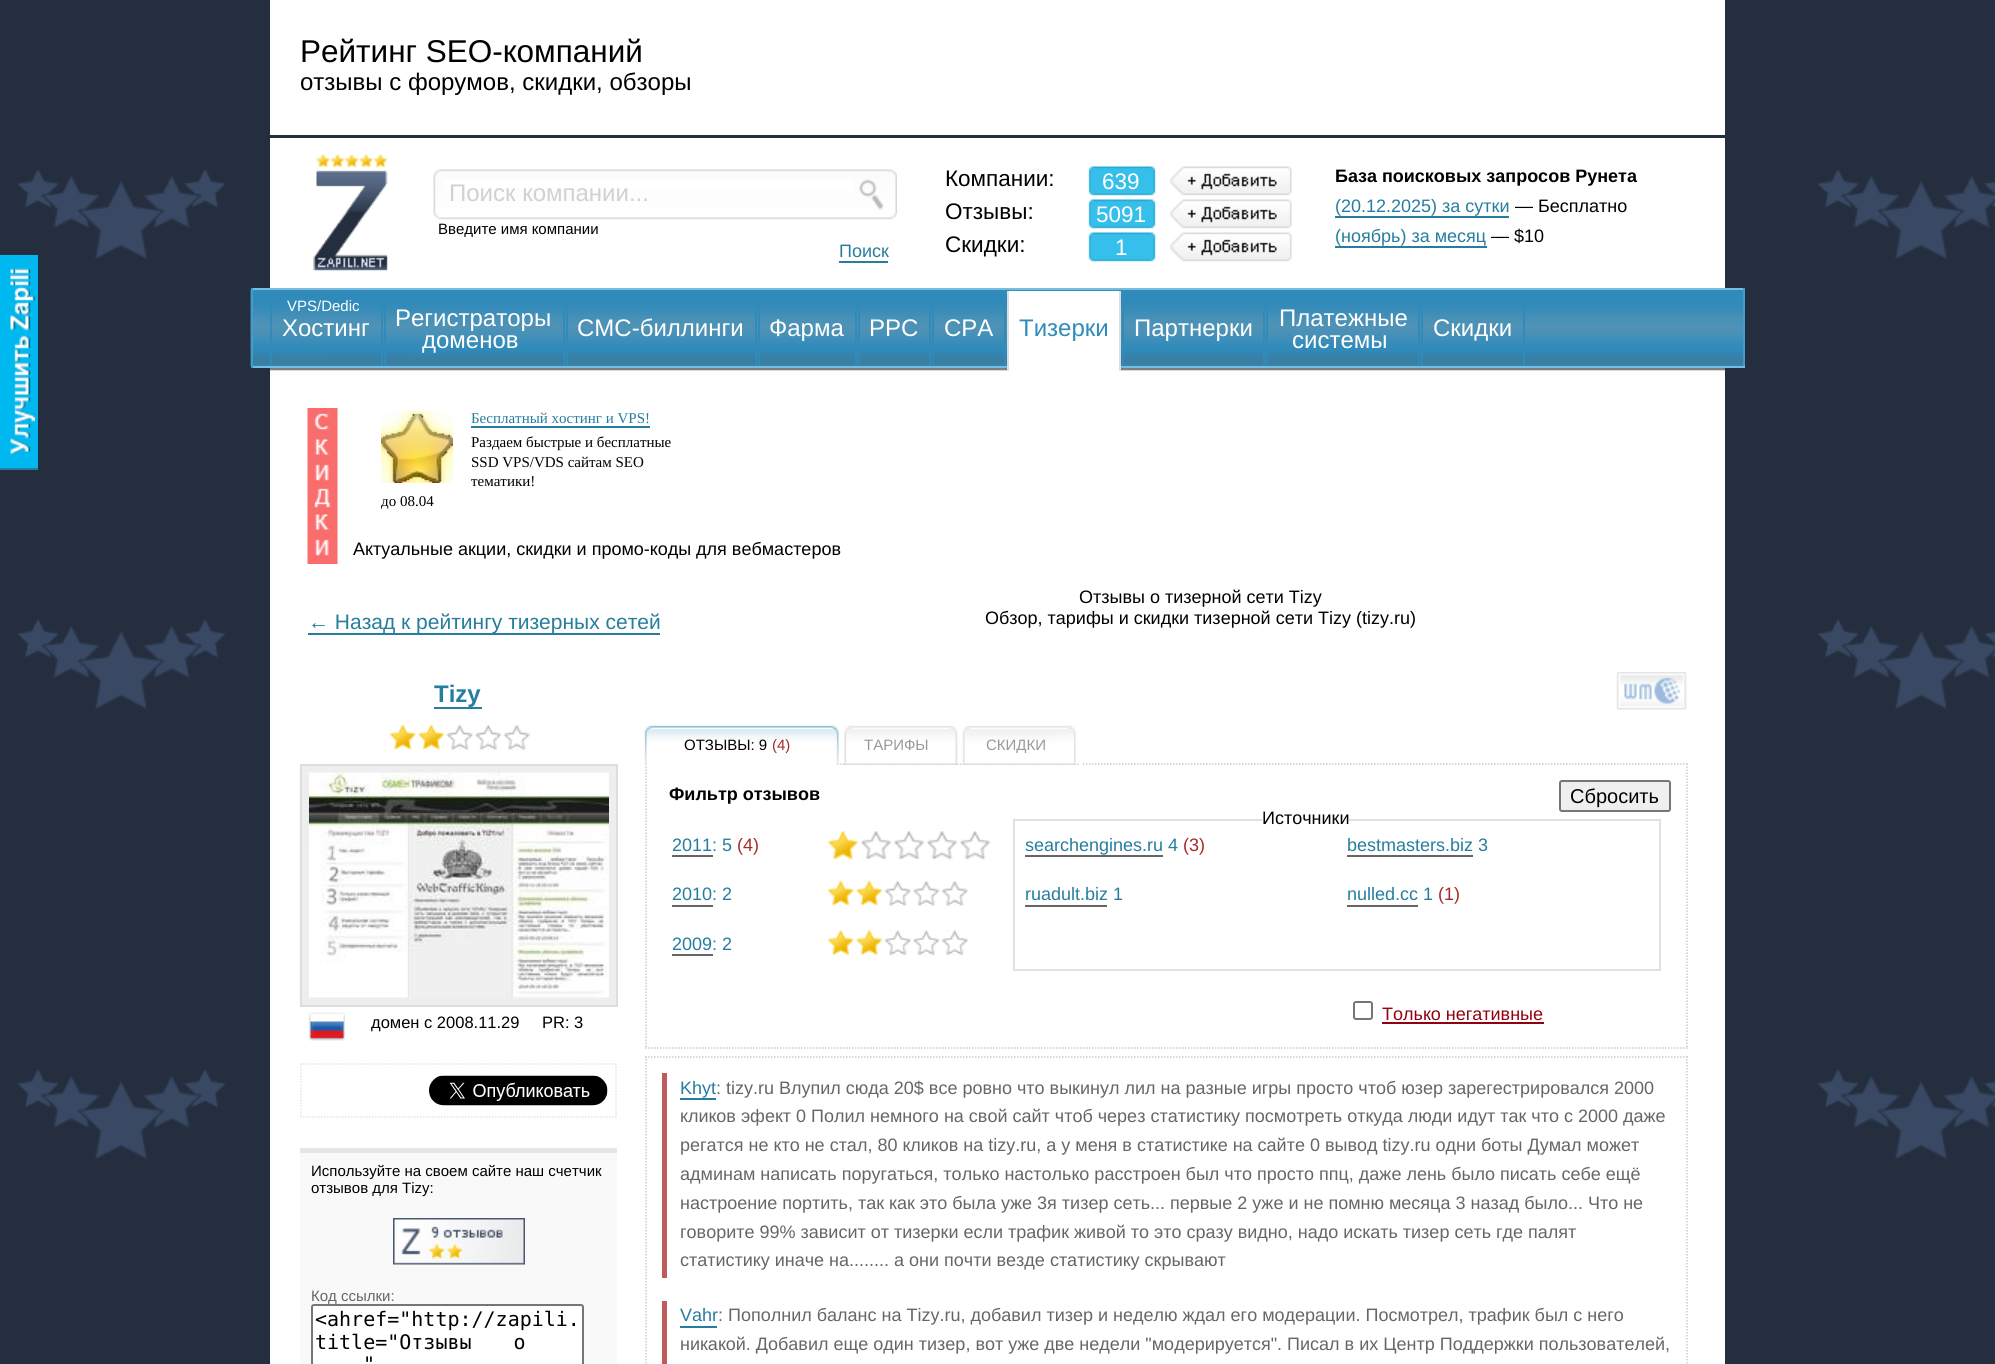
#include <cairo.h>
#include <math.h>
#include <stddef.h>


static void rgb(cairo_t *cr, int r, int g, int b)
{
	cairo_set_source_rgb(cr, r / 255.0, g / 255.0, b / 255.0);
}

static void face(cairo_t *cr, const char *family, double size, int italic, int bold)
{
	cairo_select_font_face(cr, family, italic ? CAIRO_FONT_SLANT_ITALIC : CAIRO_FONT_SLANT_NORMAL,
		bold ? CAIRO_FONT_WEIGHT_BOLD : CAIRO_FONT_WEIGHT_NORMAL);
	cairo_set_font_size(cr, size);
}

static void label(cairo_t *cr, double x, double y, const char *s)
{
	cairo_move_to(cr, x, y);
	cairo_show_text(cr, s);
}

static void tracked(cairo_t *cr, double x, double y, const char *s, double letter, double word)
{
	cairo_move_to(cr, x, y);
	while (*s) {
		char ch[5] = {0};
		int n = 0;
		do ch[n++] = *s++; while ((*s & 0xC0) == 0x80);
		cairo_show_text(cr, ch);
		cairo_rel_move_to(cr, letter + word * (*ch == ' '), 0);
	}
}

static void rect(cairo_t *cr, double x, double y, double w, double h)
{
	cairo_rectangle(cr, x, y, w, h);
	cairo_fill(cr);
}

static void rrect(cairo_t *cr, double x, double y, double w, double h, double r)
{
	cairo_new_sub_path(cr);
	cairo_arc(cr, x + w - r, y + h - r, r, 0, M_PI / 2);
	cairo_arc(cr, x + r, y + h - r, r, M_PI / 2, M_PI);
	cairo_arc(cr, x + r, y + r, r, M_PI, 1.5 * M_PI);
	cairo_arc(cr, x + w - r, y + r, r, 1.5 * M_PI, 2 * M_PI);
	cairo_close_path(cr);
}

static void image(cairo_t *cr, const char *path, double x, double y, double w, double h)
{
	cairo_surface_t *image = cairo_image_surface_create_from_png(path);
	cairo_save(cr);
	cairo_set_source_surface(cr, image, x, y);
	cairo_rectangle(cr, x, y, w, h);
	cairo_fill(cr);
	cairo_restore(cr);
	cairo_surface_destroy(image);
}

static void draw(cairo_t *cr) {
	rgb(cr, 36, 46, 62);
	cairo_paint(cr);
	image(cr, "image0.png", 18, 169, 1977, 990);
	rgb(cr, 0, 184, 240);
	rect(cr, 0, 255, 38, 213);
	rgb(cr, 38, 125, 158);
	rect(cr, 0, 468, 38, 2);
	image(cr, "image1.png", 10, 268, 25, 187);
	rgb(cr, 255, 255, 255);
	rect(cr, 270, 0, 1455, 1364);
	face(cr, "Liberation Sans", 31.5, 0, 0);
	rgb(cr, 0, 0, 0);
	label(cr, 300, 62, "Рейтинг SEO-компаний");
	face(cr, "Liberation Sans", 24, 0, 0);
	label(cr, 300, 90, "отзывы с форумов, скидки, обзоры");
	image(cr, "image2.png", 313, 154, 75, 117);
	rgb(cr, 36, 46, 62);
	rect(cr, 270, 135, 1455, 3);
	image(cr, "image3.png", 433, 169, 464, 51);
	rgb(cr, 255, 255, 255);
	rect(cr, 443, 180, 411, 10);
	rgb(cr, 209, 209, 209);
	label(cr, 449, 201, "Поиск компании...");
	face(cr, "Liberation Sans", 15, 0, 0);
	rgb(cr, 0, 0, 0);
	label(cr, 438, 234, "Введите имя компании");
	rgb(cr, 38, 125, 158);
	rect(cr, 839, 261, 49, 2);
	face(cr, "Liberation Sans", 18, 0, 0);
	label(cr, 839, 257, "Поиск");
	face(cr, "Liberation Sans", 22.5, 0, 0);
	rgb(cr, 0, 0, 0);
	label(cr, 945, 186, "Компании:");
	image(cr, "image4.png", 1088, 166, 68, 30);
	image(cr, "image5.png", 1170, 166, 122, 30);
	rgb(cr, 255, 255, 255);
	label(cr, 1102, 189, "639");
	rgb(cr, 0, 0, 0);
	label(cr, 945, 219, "Отзывы:");
	image(cr, "image4.png", 1088, 199, 68, 30);
	image(cr, "image5.png", 1170, 199, 122, 30);
	rgb(cr, 255, 255, 255);
	label(cr, 1096, 222, "5091");
	rgb(cr, 0, 0, 0);
	label(cr, 945, 252, "Скидки:");
	image(cr, "image4.png", 1088, 232, 68, 30);
	image(cr, "image5.png", 1170, 232, 122, 30);
	rgb(cr, 255, 255, 255);
	label(cr, 1115, 255, "1");
	face(cr, "Liberation Sans", 18, 0, 1);
	rgb(cr, 0, 0, 0);
	label(cr, 1335, 182, "База поисковых запросов Рунета");
	face(cr, "Liberation Sans", 18, 0, 0);
	rgb(cr, 38, 125, 158);
	label(cr, 1335, 212, "(20.12.2025) за сутки");
	rect(cr, 1335, 216, 174, 2);
	rgb(cr, 0, 0, 0);
	label(cr, 1515, 212, "— Бесплатно");
	rgb(cr, 38, 125, 158);
	label(cr, 1335, 242, "(ноябрь) за месяц");
	rect(cr, 1335, 246, 152, 2);
	rgb(cr, 0, 0, 0);
	label(cr, 1491, 242, "— $10");
	image(cr, "image6.png", 250, 289, 1493, 77);
	rgb(cr, 122, 188, 224);
	rect(cr, 251, 288, 1494, 2);
	rgb(cr, 65, 156, 205);
	rect(cr, 1743, 288, 2, 80);
	rgb(cr, 122, 188, 224);
	rect(cr, 251, 366, 1494, 2);
	rgb(cr, 65, 156, 205);
	rect(cr, 251, 288, 2, 80);
	rgb(cr, 48, 138, 186);
	rect(cr, 381, 305, 2, 61);
	rect(cr, 270, 305, 2, 61);
	face(cr, "Liberation Sans", 15, 0, 0);
	rgb(cr, 255, 255, 255);
	label(cr, 287, 311, "VPS/Dedic");
	face(cr, "Liberation Sans", 24, 0, 0);
	label(cr, 282, 336, "Хостинг");
	rgb(cr, 48, 138, 186);
	rect(cr, 563, 305, 2, 61);
	rect(cr, 384, 305, 2, 61);
	rgb(cr, 255, 255, 255);
	label(cr, 395, 326, "Регистраторы");
	label(cr, 422, 348, "доменов");
	rgb(cr, 48, 138, 186);
	rect(cr, 755, 305, 2, 61);
	rect(cr, 566, 305, 2, 61);
	rgb(cr, 255, 255, 255);
	label(cr, 577, 336, "СМС-биллинги");
	rgb(cr, 48, 138, 186);
	rect(cr, 855, 305, 2, 61);
	rect(cr, 758, 305, 2, 61);
	rgb(cr, 255, 255, 255);
	label(cr, 769, 336, "Фарма");
	rgb(cr, 48, 138, 186);
	rect(cr, 929, 305, 2, 61);
	rect(cr, 858, 305, 2, 61);
	rgb(cr, 255, 255, 255);
	label(cr, 869, 336, "PPC");
	rgb(cr, 48, 138, 186);
	rect(cr, 1004, 305, 2, 61);
	rect(cr, 932, 305, 2, 61);
	rgb(cr, 255, 255, 255);
	label(cr, 944, 336, "CPA");
	rgb(cr, 218, 218, 218);
	rect(cr, 270, 370, 1455, 1);
	rgb(cr, 126, 126, 126);
	rect(cr, 270, 368, 1455, 2);
	rgb(cr, 255, 255, 255);
	rect(cr, 1009, 291, 110, 80);
	rgb(cr, 221, 221, 221);
	rect(cr, 1119, 291, 2, 80);
	rect(cr, 1007, 291, 2, 80);
	rgb(cr, 48, 138, 186);
	label(cr, 1019, 336, "Тизерки");
	rect(cr, 1263, 305, 2, 61);
	rect(cr, 1122, 305, 2, 61);
	rgb(cr, 255, 255, 255);
	label(cr, 1134, 336, "Партнерки");
	rgb(cr, 48, 138, 186);
	rect(cr, 1418, 305, 2, 61);
	rect(cr, 1266, 305, 2, 61);
	rgb(cr, 255, 255, 255);
	label(cr, 1279, 326, "Платежные");
	label(cr, 1292, 348, "системы");
	rgb(cr, 48, 138, 186);
	rect(cr, 1523, 305, 2, 61);
	rect(cr, 1421, 305, 2, 61);
	rgb(cr, 255, 255, 255);
	label(cr, 1433, 336, "Скидки");
	image(cr, "image7.png", 307, 408, 31, 156);
	image(cr, "image8.png", 381, 411, 72, 72);
	face(cr, "Liberation Serif", 15, 0, 0);
	rgb(cr, 38, 125, 158);
	label(cr, 471, 423, "Бесплатный хостинг и VPS!");
	rect(cr, 471, 426, 179, 2);
	rgb(cr, 0, 0, 0);
	label(cr, 471, 447, "Раздаем быстрые и бесплатные");
	label(cr, 471, 467, "SSD VPS/VDS сайтам SEO");
	label(cr, 471, 486, "тематики!");
	label(cr, 381, 506, "до 08.04");
	face(cr, "Liberation Sans", 18, 0, 0);
	label(cr, 353, 555, "Актуальные акции, скидки и промо-коды для вебмастеров");
	rgb(cr, 38, 125, 158);
	rect(cr, 308, 633, 352, 2);
	face(cr, "Liberation Sans", 21, 0, 0);
	label(cr, 308, 629, "← Назад к рейтингу тизерных сетей");
	face(cr, "Liberation Sans", 18, 0, 0);
	rgb(cr, 0, 0, 0);
	label(cr, 1079, 603, "Отзывы о тизерной сети Tizy");
	label(cr, 985, 624, "Обзор, тарифы и скидки тизерной сети Tizy (tizy.ru)");
	face(cr, "Liberation Sans", 24, 0, 1);
	rgb(cr, 38, 125, 158);
	label(cr, 434, 702, "Tizy");
	rect(cr, 434, 707, 48, 2);
	image(cr, "image9.png", 389, 724, 27, 26);
	image(cr, "image10.png", 418, 724, 27, 26);
	image(cr, "image11.png", 446, 724, 27, 26);
	image(cr, "image12.png", 475, 724, 27, 26);
	image(cr, "image11.png", 503, 724, 27, 26);
	image(cr, "image13.png", 1616, 672, 71, 38);
	cairo_new_path(cr);
	cairo_move_to(cr, 645, 764);
	cairo_line_to(cr, 1687.5, 764);
	rgb(cr, 204, 204, 204);
	cairo_set_line_width(cr, 1.5);
	cairo_set_dash(cr, (double[]){1.5, 1.5}, 2, 0);
	cairo_stroke(cr);
	cairo_new_path(cr);
	cairo_move_to(cr, 1687, 763.5);
	cairo_line_to(cr, 1687, 1048.5);
	cairo_stroke(cr);
	cairo_new_path(cr);
	cairo_move_to(cr, 645, 1048);
	cairo_line_to(cr, 1687.5, 1048);
	cairo_stroke(cr);
	cairo_new_path(cr);
	cairo_move_to(cr, 646, 763.5);
	cairo_line_to(cr, 646, 1048.5);
	cairo_stroke(cr);
	rgb(cr, 255, 255, 255);
	rect(cr, 645, 763, 437, 2);
	image(cr, "image14.png", 644, 725, 435, 40);
	face(cr, "Liberation Sans", 15, 0, 0);
	rgb(cr, 0, 0, 0);
	label(cr, 684, 750, "ОТЗЫВЫ: 9");
	rgb(cr, 166, 42, 42);
	label(cr, 772, 750, "(4)");
	rgb(cr, 153, 153, 153);
	label(cr, 864, 750, "ТАРИФЫ");
	label(cr, 986, 750, "СКИДКИ");
	face(cr, "Liberation Sans", 18, 0, 1);
	rgb(cr, 0, 0, 0);
	label(cr, 669, 800, "Фильтр отзывов");
	rgb(cr, 239, 239, 239);
	rrect(cr, 1560, 781, 110, 30, 2);
	cairo_fill_preserve(cr);
	rgb(cr, 118, 118, 118);
	cairo_set_line_width(cr, 2);
	cairo_set_dash(cr, NULL, 0, 0);
	cairo_stroke(cr);
	face(cr, "Liberation Sans", 20, 0, 0);
	rgb(cr, 0, 0, 0);
	label(cr, 1570, 803, "Сбросить");
	face(cr, "Liberation Sans", 18, 0, 0);
	label(cr, 1262, 824, "Источники");
	rgb(cr, 38, 125, 158);
	label(cr, 672, 851, "2011: 5");
	rgb(cr, 102, 102, 102);
	rect(cr, 672, 855, 41, 2);
	rgb(cr, 166, 42, 42);
	label(cr, 737, 851, "(4)");
	image(cr, "image15.png", 827, 831, 32, 29);
	image(cr, "image16.png", 861, 831, 31, 29);
	image(cr, "image16.png", 894, 831, 31, 29);
	image(cr, "image16.png", 927, 831, 31, 29);
	image(cr, "image16.png", 960, 831, 31, 29);
	rgb(cr, 225, 225, 225);
	rect(cr, 1013, 819, 249, 2);
	rect(cr, 1659, 870, 2, 101);
	rect(cr, 1013, 969, 648, 2);
	rect(cr, 1013, 870, 2, 101);
	rect(cr, 1013, 819, 2, 53);
	rgb(cr, 38, 125, 158);
	label(cr, 1025, 851, "searchengines.ru 4");
	rgb(cr, 102, 102, 102);
	rect(cr, 1025, 855, 138, 2);
	rgb(cr, 166, 42, 42);
	label(cr, 1183, 851, "(3)");
	rgb(cr, 225, 225, 225);
	rect(cr, 1349, 819, 312, 2);
	rect(cr, 1659, 819, 2, 53);
	rgb(cr, 38, 125, 158);
	label(cr, 1347, 851, "bestmasters.biz 3");
	rgb(cr, 102, 102, 102);
	rect(cr, 1347, 855, 126, 2);
	rgb(cr, 38, 125, 158);
	label(cr, 672, 900, "2010: 2");
	rgb(cr, 102, 102, 102);
	rect(cr, 672, 905, 41, 2);
	image(cr, "image17.png", 827, 880, 27, 26);
	image(cr, "image18.png", 856, 880, 27, 26);
	image(cr, "image19.png", 884, 880, 27, 26);
	image(cr, "image20.png", 913, 880, 27, 26);
	image(cr, "image19.png", 941, 880, 27, 26);
	rgb(cr, 38, 125, 158);
	label(cr, 1025, 900, "ruadult.biz 1");
	rgb(cr, 102, 102, 102);
	rect(cr, 1025, 905, 82, 2);
	rgb(cr, 38, 125, 158);
	label(cr, 1347, 900, "nulled.cc 1");
	rgb(cr, 102, 102, 102);
	rect(cr, 1347, 905, 71, 2);
	rgb(cr, 166, 42, 42);
	label(cr, 1438, 900, "(1)");
	rgb(cr, 38, 125, 158);
	label(cr, 672, 950, "2009: 2");
	rgb(cr, 102, 102, 102);
	rect(cr, 672, 954, 41, 2);
	image(cr, "image21.png", 827, 930, 27, 26);
	image(cr, "image22.png", 856, 930, 27, 26);
	image(cr, "image23.png", 884, 930, 27, 26);
	image(cr, "image24.png", 913, 930, 27, 26);
	image(cr, "image23.png", 941, 930, 27, 26);
	rrect(cr, 1354, 1002, 18, 17, 2);
	rgb(cr, 118, 118, 118);
	cairo_stroke(cr);
	rgb(cr, 144, 2, 17);
	label(cr, 1382, 1020, "Только негативные");
	rect(cr, 1382, 1022, 162, 2);
	rgb(cr, 238, 238, 238);
	cairo_rectangle(cr, 301, 765, 316, 241);
	cairo_fill_preserve(cr);
	rgb(cr, 221, 221, 221);
	cairo_stroke(cr);
	image(cr, "image25.png", 309, 772, 300, 226);
	image(cr, "image26.png", 309, 1012, 36, 29);
	face(cr, "Liberation Sans", 16.5, 0, 0);
	rgb(cr, 0, 0, 0);
	label(cr, 371, 1028, "домен с 2008.11.29");
	label(cr, 542, 1028, "PR: 3");
	cairo_new_path(cr);
	cairo_move_to(cr, 300, 1064);
	cairo_line_to(cr, 616.5, 1064);
	rgb(cr, 229, 229, 229);
	cairo_set_line_width(cr, 1.5);
	cairo_set_dash(cr, (double[]){1.5, 1.5}, 2, 0);
	cairo_stroke(cr);
	cairo_new_path(cr);
	cairo_move_to(cr, 616, 1063.5);
	cairo_line_to(cr, 616, 1117.5);
	cairo_stroke(cr);
	cairo_new_path(cr);
	cairo_move_to(cr, 300, 1117);
	cairo_line_to(cr, 616.5, 1117);
	cairo_stroke(cr);
	cairo_new_path(cr);
	cairo_move_to(cr, 301, 1063.5);
	cairo_line_to(cr, 301, 1117.5);
	cairo_stroke(cr);
	image(cr, "image27.png", 429, 1075, 179, 31);
	rgb(cr, 249, 249, 249);
	rect(cr, 300, 1153, 317, 211);
	rgb(cr, 229, 229, 229);
	rect(cr, 300, 1148, 317, 5);
	face(cr, "Liberation Sans", 15, 0, 0);
	rgb(cr, 0, 0, 0);
	label(cr, 311, 1176, "Используйте на своем сайте наш счетчик");
	label(cr, 311, 1193, "отзывов для Tizy:");
	image(cr, "image28.png", 393, 1218, 132, 47);
	rgb(cr, 102, 102, 102);
	label(cr, 311, 1301, "Код ссылки:");
	rgb(cr, 255, 255, 255);
	rrect(cr, 312, 1305, 271, 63, 2);
	cairo_fill_preserve(cr);
	rgb(cr, 118, 118, 118);
	cairo_set_line_width(cr, 2);
	cairo_set_dash(cr, NULL, 0, 0);
	cairo_stroke(cr);
	face(cr, "DejaVu Sans Mono", 20, 0, 0);
	rgb(cr, 0, 0, 0);
	label(cr, 315, 1326, "<ahref=\"http://zapili.");
	tracked(cr, 315, 1349, "title=\"Отзывы о", 0, 30);
	label(cr, 363, 1371, "\"");
	cairo_new_path(cr);
	cairo_move_to(cr, 645, 1057);
	cairo_line_to(cr, 1687.5, 1057);
	rgb(cr, 204, 204, 204);
	cairo_set_line_width(cr, 1.5);
	cairo_set_dash(cr, (double[]){1.5, 1.5}, 2, 0);
	cairo_stroke(cr);
	cairo_new_path(cr);
	cairo_move_to(cr, 1687, 1056);
	cairo_line_to(cr, 1687, 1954.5);
	cairo_stroke(cr);
	cairo_new_path(cr);
	cairo_move_to(cr, 646, 1056);
	cairo_line_to(cr, 646, 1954.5);
	cairo_stroke(cr);
	rgb(cr, 190, 92, 92);
	rect(cr, 662, 1073, 5, 205);
	face(cr, "Liberation Sans", 18, 0, 0);
	rgb(cr, 38, 125, 158);
	label(cr, 680, 1094, "Khyt");
	rect(cr, 680, 1098, 36, 2);
	rgb(cr, 102, 102, 102);
	label(cr, 716, 1094, ": tizy.ru Влупил сюда 20$ все ровно что выкинул лил на разные игры просто чтоб юзер зарегестрировался 2000");
	label(cr, 680, 1122, "кликов эфект 0 Полил немного на свой сайт чтоб через статистику посмотреть откуда люди идут так что с 2000 даже");
	label(cr, 680, 1151, "регатся не кто не стал, 80 кликов на tizy.ru, а у меня в статистике на сайте 0 вывод tizy.ru одни боты Думал может");
	label(cr, 680, 1180, "админам написать поругаться, только настолько расстроен был что просто ппц, даже лень было писать себе ещё");
	label(cr, 680, 1209, "настроение портить, так как это была уже 3я тизер сеть... первые 2 уже и не помню месяца 3 назад было... Что не");
	label(cr, 680, 1238, "говорите 99% зависит от тизерки если трафик живой то это сразу видно, надо искать тизер сеть где палят");
	label(cr, 680, 1266, "статистику иначе на........ а они почти везде статистику скрывают");
	rgb(cr, 190, 92, 92);
	rect(cr, 662, 1301, 5, 63);
	rgb(cr, 38, 125, 158);
	label(cr, 680, 1321, "Vahr");
	rect(cr, 680, 1326, 37, 2);
	rgb(cr, 102, 102, 102);
	label(cr, 718, 1321, ": Пополнил баланс на Tizy.ru, добавил тизер и неделю ждал его модерации. Посмотрел, трафик был с него");
	label(cr, 680, 1350, "никакой. Добавил еще один тизер, вот уже две недели \"модерируется\". Писал в их Центр Поддержки пользователей,");
}

int main(void) {
	cairo_surface_t *surface = cairo_image_surface_create(CAIRO_FORMAT_RGB24, 1995, 1364);
	cairo_t *cr = cairo_create(surface);
	cairo_font_options_t *options = cairo_font_options_create();
	cairo_font_options_set_hint_metrics(options, CAIRO_HINT_METRICS_OFF);
	cairo_font_options_set_hint_style(options, CAIRO_HINT_STYLE_NONE);
	cairo_set_font_options(cr, options);
	cairo_set_miter_limit(cr, 4);
	draw(cr);
	cairo_surface_write_to_png(surface, "render.png");
	cairo_font_options_destroy(options);
	cairo_destroy(cr);
	cairo_surface_destroy(surface);
	return 0;
}
